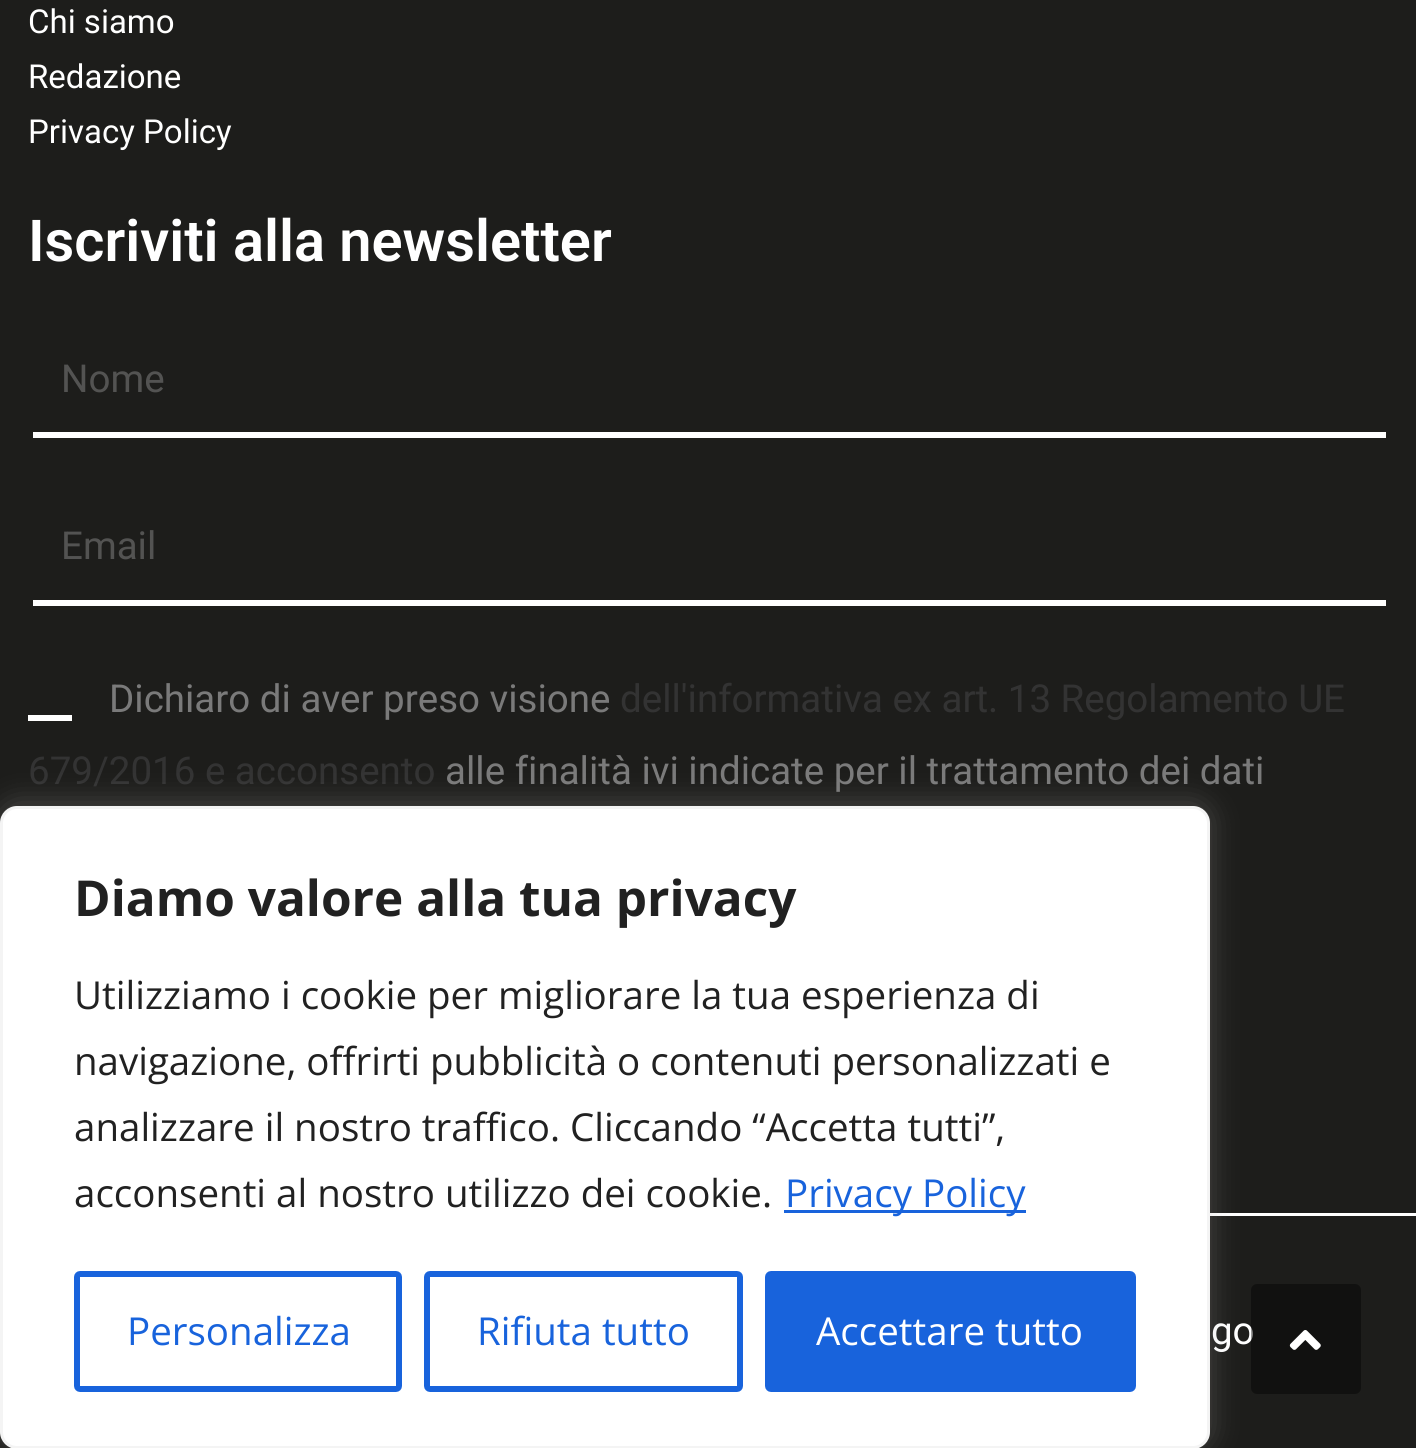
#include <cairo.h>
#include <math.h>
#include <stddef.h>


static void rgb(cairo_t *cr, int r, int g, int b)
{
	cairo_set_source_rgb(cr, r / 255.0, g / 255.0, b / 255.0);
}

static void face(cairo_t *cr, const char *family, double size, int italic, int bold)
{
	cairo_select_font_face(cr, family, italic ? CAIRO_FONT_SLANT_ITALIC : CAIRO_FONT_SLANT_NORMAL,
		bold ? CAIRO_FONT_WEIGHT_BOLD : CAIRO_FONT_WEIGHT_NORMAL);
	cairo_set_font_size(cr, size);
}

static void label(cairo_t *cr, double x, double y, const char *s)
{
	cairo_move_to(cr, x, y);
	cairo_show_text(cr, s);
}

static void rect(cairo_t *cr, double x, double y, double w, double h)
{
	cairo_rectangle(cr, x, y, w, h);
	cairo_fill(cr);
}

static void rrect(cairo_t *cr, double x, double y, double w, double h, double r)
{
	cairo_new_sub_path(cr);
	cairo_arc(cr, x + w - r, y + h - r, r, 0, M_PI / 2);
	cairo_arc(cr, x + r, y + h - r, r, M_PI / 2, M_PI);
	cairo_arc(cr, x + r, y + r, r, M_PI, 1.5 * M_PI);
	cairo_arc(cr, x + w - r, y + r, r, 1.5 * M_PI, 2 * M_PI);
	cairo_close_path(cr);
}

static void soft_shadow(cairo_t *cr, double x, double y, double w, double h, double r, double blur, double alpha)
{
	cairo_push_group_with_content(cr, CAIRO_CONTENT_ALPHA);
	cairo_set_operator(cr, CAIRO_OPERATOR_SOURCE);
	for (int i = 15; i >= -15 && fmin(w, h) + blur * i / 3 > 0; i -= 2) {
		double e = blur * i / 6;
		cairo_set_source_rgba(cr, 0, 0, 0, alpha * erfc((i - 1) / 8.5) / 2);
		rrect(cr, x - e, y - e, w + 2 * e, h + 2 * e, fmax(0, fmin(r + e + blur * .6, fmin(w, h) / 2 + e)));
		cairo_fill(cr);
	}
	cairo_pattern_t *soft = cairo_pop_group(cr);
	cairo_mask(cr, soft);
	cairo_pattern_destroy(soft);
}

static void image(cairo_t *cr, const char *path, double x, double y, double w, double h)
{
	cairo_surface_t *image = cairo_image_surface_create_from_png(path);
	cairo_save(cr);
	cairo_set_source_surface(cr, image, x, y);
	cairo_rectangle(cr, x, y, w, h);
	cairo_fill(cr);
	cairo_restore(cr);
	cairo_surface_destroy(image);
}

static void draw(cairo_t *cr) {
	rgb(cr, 29, 29, 27);
	cairo_paint(cr);
	face(cr, "Roboto", 33, 0, 0);
	rgb(cr, 255, 255, 255);
	label(cr, 28, 33, "Chi siamo");
	label(cr, 28, 88, "Redazione");
	label(cr, 28, 143, "Privacy Policy");
	face(cr, "Roboto SemiBold", 57.75, 0, 0);
	label(cr, 28, 261, "Iscriviti alla newsletter");
	rect(cr, 33, 432, 1353, 6);
	face(cr, "Roboto", 38.5, 0, 0);
	rgb(cr, 83, 83, 82);
	label(cr, 61, 392, "Nome");
	rgb(cr, 255, 255, 255);
	rect(cr, 33, 600, 1353, 6);
	rgb(cr, 83, 83, 82);
	label(cr, 61, 559, "Email");
	rgb(cr, 255, 255, 255);
	rect(cr, 28, 715, 44, 6);
	rgb(cr, 122, 122, 122);
	label(cr, 109, 712, "Dichiaro di aver preso visione");
	rgb(cr, 51, 51, 51);
	label(cr, 620, 712, "dell'informativa ex art. 13 Regolamento UE");
	label(cr, 28, 784, "679/2016 e acconsento");
	rgb(cr, 122, 122, 122);
	label(cr, 445, 784, "alle finalità ivi indicate per il trattamento dei dati");
	rgb(cr, 255, 255, 255);
	rect(cr, 1210, 1213, 206, 3);
	label(cr, 1211, 1344, "go");
	cairo_set_source_rgba(cr, 0, 0, 0, 0.4);
	rrect(cr, 1251, 1284, 110, 110, 6);
	cairo_fill(cr);
	rgb(cr, 172, 171, 171);
	soft_shadow(cr, 0, 803, 1210, 644, 17, 14, 0.3);
	rgb(cr, 255, 255, 255);
	rrect(cr, 1.5, 807.5, 1207, 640, 15.5);
	cairo_fill_preserve(cr);
	rgb(cr, 244, 244, 244);
	cairo_set_line_width(cr, 3);
	cairo_stroke(cr);
	face(cr, "Open Sans", 49.5, 0, 1);
	rgb(cr, 33, 33, 33);
	label(cr, 74, 916, "Diamo valore alla tua privacy");
	face(cr, "Open Sans", 38.5, 0, 0);
	label(cr, 74, 1009, "Utilizziamo i cookie per migliorare la tua esperienza di");
	label(cr, 74, 1075, "navigazione, offrirti pubblicità o contenuti personalizzati e");
	label(cr, 74, 1141, "analizzare il nostro traffico. Cliccando “Accetta tutti”,");
	label(cr, 74, 1207, "acconsenti al nostro utilizzo dei cookie.");
	rgb(cr, 24, 99, 220);
	rect(cr, 784, 1210, 242, 3);
	label(cr, 785, 1207, "Privacy Policy");
	rrect(cr, 77, 1274, 322, 115, 3);
	cairo_set_line_width(cr, 6);
	cairo_stroke(cr);
	label(cr, 127, 1345, "Personalizza");
	rrect(cr, 427, 1274, 313, 115, 3);
	cairo_stroke(cr);
	label(cr, 477, 1345, "Rifiuta tutto");
	rrect(cr, 768, 1274, 365, 115, 3);
	cairo_fill_preserve(cr);
	cairo_stroke(cr);
	rgb(cr, 255, 255, 255);
	label(cr, 816, 1345, "Accettare tutto");
	image(cr, "image0.png", 1289, 1330, 32, 20);
}

int main(void) {
	cairo_surface_t *surface = cairo_image_surface_create(CAIRO_FORMAT_RGB24, 1416, 1448);
	cairo_t *cr = cairo_create(surface);
	cairo_font_options_t *options = cairo_font_options_create();
	cairo_font_options_set_hint_metrics(options, CAIRO_HINT_METRICS_OFF);
	cairo_font_options_set_hint_style(options, CAIRO_HINT_STYLE_NONE);
	cairo_set_font_options(cr, options);
	cairo_set_miter_limit(cr, 4);
	draw(cr);
	cairo_surface_write_to_png(surface, "render.png");
	cairo_font_options_destroy(options);
	cairo_destroy(cr);
	cairo_surface_destroy(surface);
	return 0;
}
